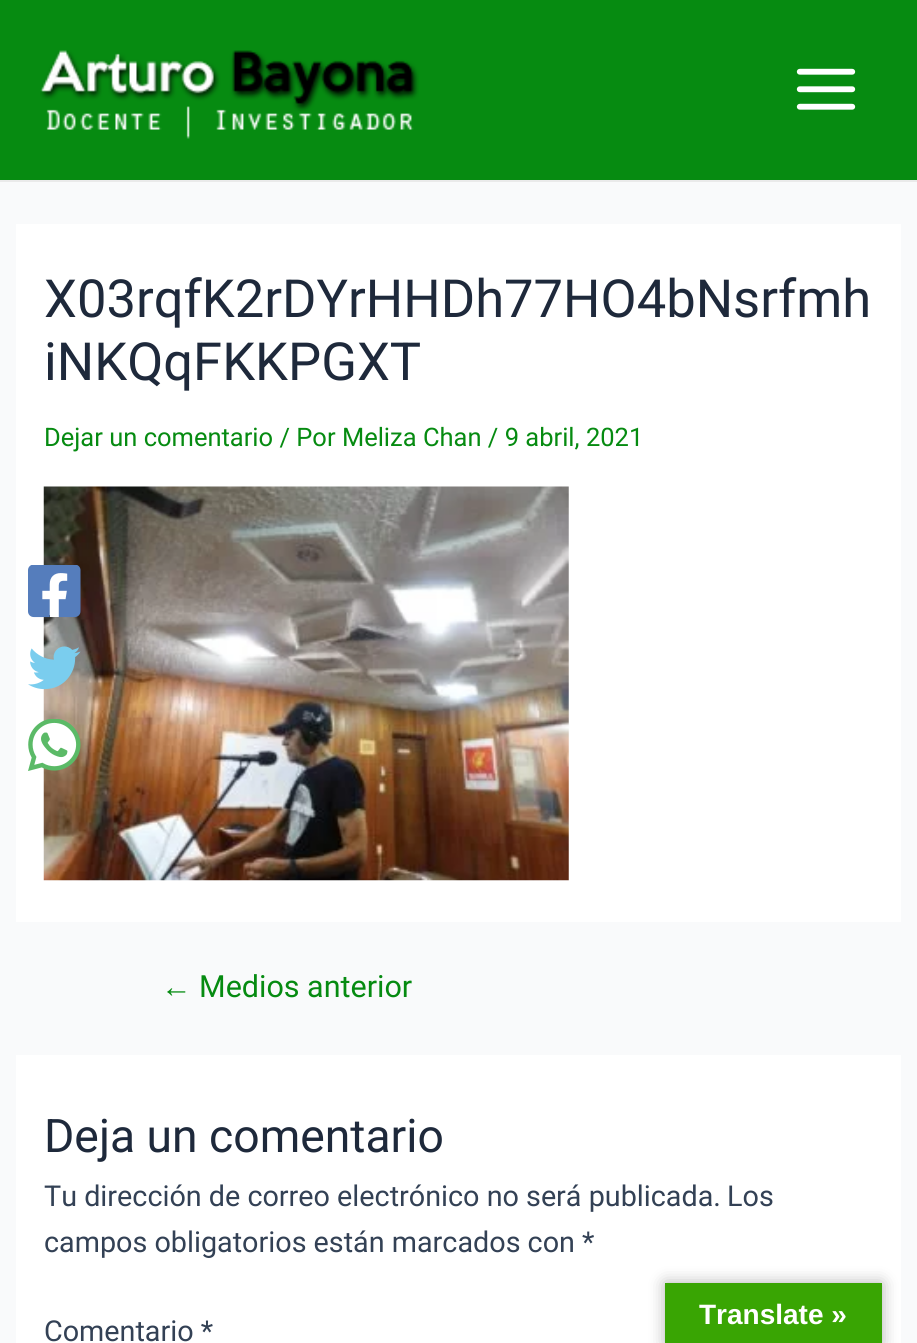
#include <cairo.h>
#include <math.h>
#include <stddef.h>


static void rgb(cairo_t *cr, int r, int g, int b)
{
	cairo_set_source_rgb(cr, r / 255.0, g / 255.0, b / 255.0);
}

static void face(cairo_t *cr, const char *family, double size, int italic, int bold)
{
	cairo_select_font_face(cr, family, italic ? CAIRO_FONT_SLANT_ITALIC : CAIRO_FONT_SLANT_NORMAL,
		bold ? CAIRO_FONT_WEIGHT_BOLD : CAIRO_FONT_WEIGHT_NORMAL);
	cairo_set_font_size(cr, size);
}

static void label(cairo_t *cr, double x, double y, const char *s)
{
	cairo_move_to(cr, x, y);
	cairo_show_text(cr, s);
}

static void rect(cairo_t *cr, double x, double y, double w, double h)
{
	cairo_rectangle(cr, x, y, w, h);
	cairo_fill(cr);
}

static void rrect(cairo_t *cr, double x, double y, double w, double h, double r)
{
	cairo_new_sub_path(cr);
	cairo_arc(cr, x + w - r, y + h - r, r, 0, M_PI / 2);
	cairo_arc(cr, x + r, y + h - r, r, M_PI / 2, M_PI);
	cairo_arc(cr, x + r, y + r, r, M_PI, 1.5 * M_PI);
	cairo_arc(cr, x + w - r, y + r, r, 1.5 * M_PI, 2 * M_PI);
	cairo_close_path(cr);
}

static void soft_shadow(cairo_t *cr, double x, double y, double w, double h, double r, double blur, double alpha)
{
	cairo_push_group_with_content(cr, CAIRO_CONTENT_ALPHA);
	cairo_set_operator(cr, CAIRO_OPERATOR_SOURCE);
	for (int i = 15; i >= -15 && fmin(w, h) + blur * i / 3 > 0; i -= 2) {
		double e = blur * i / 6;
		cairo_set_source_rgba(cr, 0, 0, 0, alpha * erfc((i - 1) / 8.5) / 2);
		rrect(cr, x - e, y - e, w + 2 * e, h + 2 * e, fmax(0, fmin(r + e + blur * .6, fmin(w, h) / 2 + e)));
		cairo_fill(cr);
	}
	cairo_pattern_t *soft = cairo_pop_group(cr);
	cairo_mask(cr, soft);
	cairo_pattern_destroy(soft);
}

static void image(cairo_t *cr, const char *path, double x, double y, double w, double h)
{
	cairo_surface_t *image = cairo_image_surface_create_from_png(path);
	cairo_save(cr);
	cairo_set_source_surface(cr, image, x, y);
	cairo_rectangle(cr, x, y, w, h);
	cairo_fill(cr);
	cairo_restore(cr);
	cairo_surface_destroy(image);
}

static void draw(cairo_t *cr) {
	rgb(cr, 249, 250, 251);
	cairo_paint(cr);
	rgb(cr, 6, 139, 17);
	rect(cr, 0, 0, 917, 180);
	rgb(cr, 234, 234, 234);
	rect(cr, 0, 180, 917, 2);
	image(cr, "image0.png", 40, 50, 379, 89);
	image(cr, "image1.png", 796, 68, 60, 42);
	rgb(cr, 255, 255, 255);
	rect(cr, 16, 224, 885, 698);
	face(cr, "Roboto", 52.5, 0, 0);
	rgb(cr, 30, 41, 59);
	label(cr, 44, 317, "X03rqfK2rDYrHHDh77HO4bNsrfmh");
	label(cr, 44, 380, "iNKQqFKKPGXT");
	face(cr, "Roboto", 25.5, 0, 0);
	rgb(cr, 6, 139, 17);
	label(cr, 44, 446, "Dejar un comentario / Por Meliza Chan / 9 abril, 2021");
	image(cr, "image2.png", 43, 486, 526, 395);
	image(cr, "image3.png", 28, 565, 53, 53);
	image(cr, "image4.png", 28, 646, 53, 44);
	image(cr, "image5.png", 28, 719, 53, 52);
	face(cr, "Liberation Sans", 30.5, 0, 0);
	label(cr, 161, 997, "←");
	face(cr, "Roboto", 30.5, 0, 0);
	label(cr, 199, 997, "Medios anterior");
	rgb(cr, 255, 255, 255);
	rect(cr, 16, 1055, 885, 288);
	face(cr, "Roboto", 46.25, 0, 0);
	rgb(cr, 30, 41, 59);
	label(cr, 44, 1152, "Deja un comentario");
	face(cr, "Roboto", 28.75, 0, 0);
	rgb(cr, 51, 65, 85);
	label(cr, 44, 1206, "Tu dirección de correo electrónico no será publicada.");
	label(cr, 727, 1206, "Los");
	label(cr, 44, 1252, "campos obligatorios están marcados con *");
	label(cr, 44, 1341, "Comentario *");
	rgb(cr, 0, 0, 0);
	soft_shadow(cr, 665, 1283, 217, 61, 0, 8, 0.3);
	rgb(cr, 57, 165, 3);
	rect(cr, 665, 1283, 217, 60);
	face(cr, "Liberation Sans", 28, 0, 1);
	rgb(cr, 255, 255, 255);
	label(cr, 699, 1324, "Translate »");
}

int main(void) {
	cairo_surface_t *surface = cairo_image_surface_create(CAIRO_FORMAT_RGB24, 917, 1343);
	cairo_t *cr = cairo_create(surface);
	cairo_font_options_t *options = cairo_font_options_create();
	cairo_font_options_set_hint_metrics(options, CAIRO_HINT_METRICS_OFF);
	cairo_font_options_set_hint_style(options, CAIRO_HINT_STYLE_NONE);
	cairo_set_font_options(cr, options);
	cairo_set_miter_limit(cr, 4);
	draw(cr);
	cairo_surface_write_to_png(surface, "render.png");
	cairo_font_options_destroy(options);
	cairo_destroy(cr);
	cairo_surface_destroy(surface);
	return 0;
}
